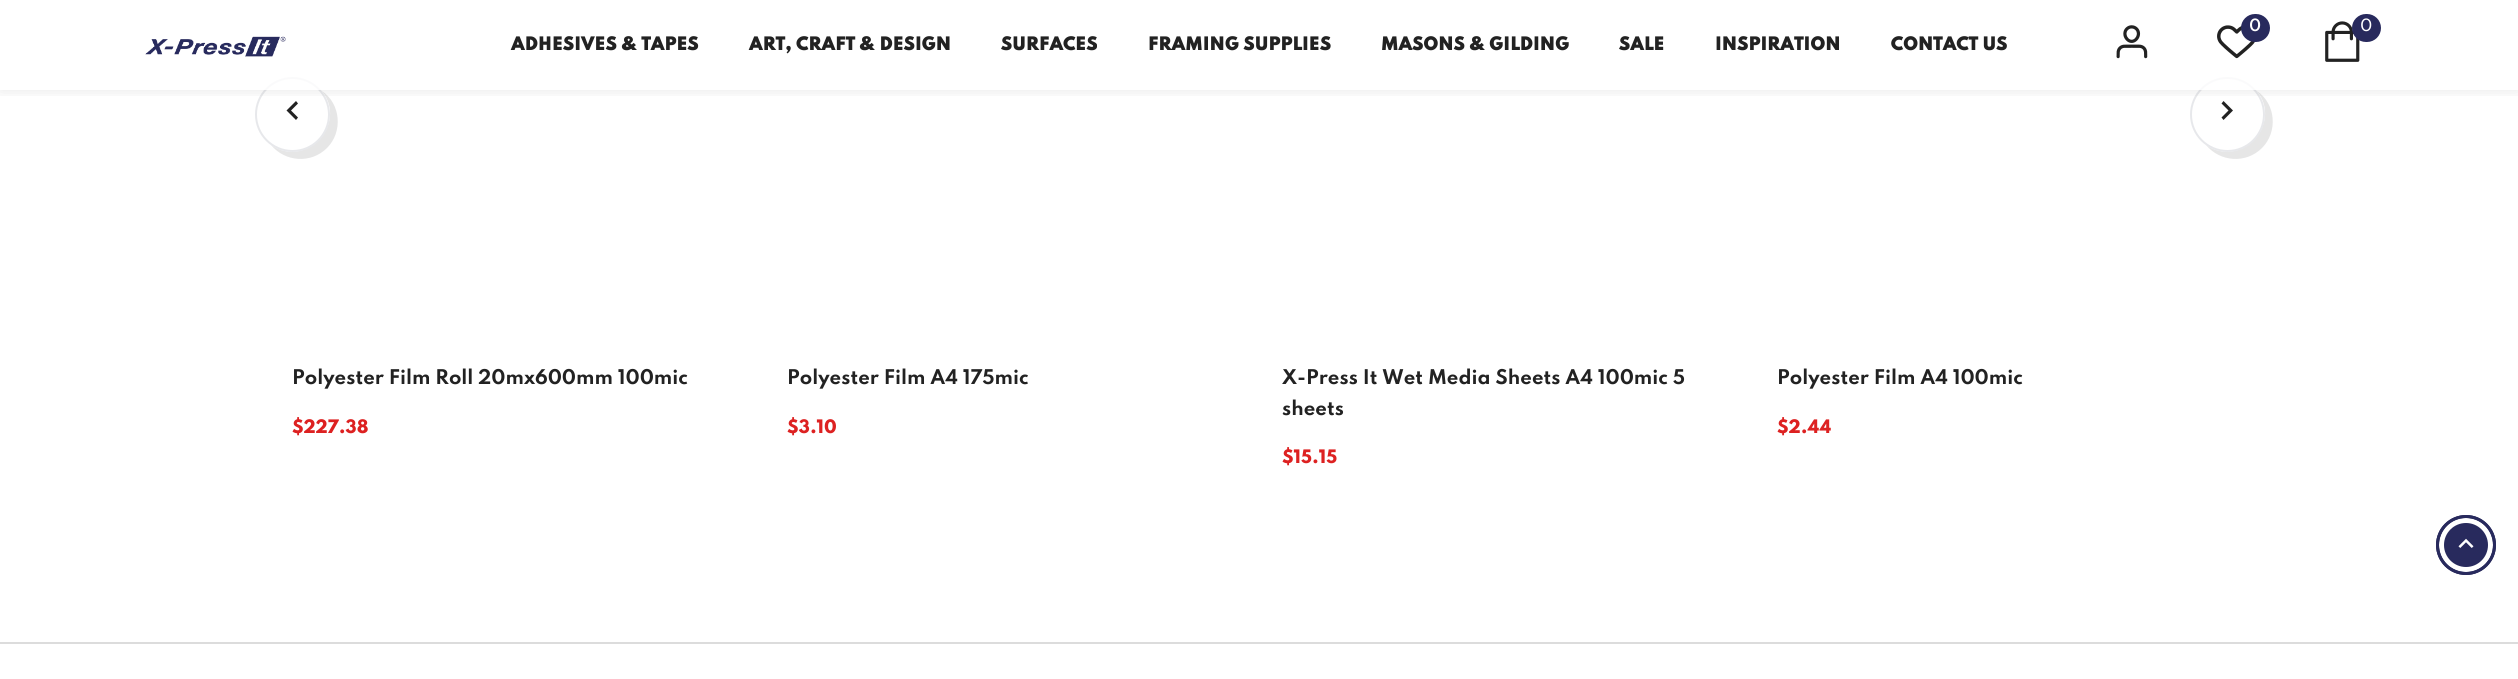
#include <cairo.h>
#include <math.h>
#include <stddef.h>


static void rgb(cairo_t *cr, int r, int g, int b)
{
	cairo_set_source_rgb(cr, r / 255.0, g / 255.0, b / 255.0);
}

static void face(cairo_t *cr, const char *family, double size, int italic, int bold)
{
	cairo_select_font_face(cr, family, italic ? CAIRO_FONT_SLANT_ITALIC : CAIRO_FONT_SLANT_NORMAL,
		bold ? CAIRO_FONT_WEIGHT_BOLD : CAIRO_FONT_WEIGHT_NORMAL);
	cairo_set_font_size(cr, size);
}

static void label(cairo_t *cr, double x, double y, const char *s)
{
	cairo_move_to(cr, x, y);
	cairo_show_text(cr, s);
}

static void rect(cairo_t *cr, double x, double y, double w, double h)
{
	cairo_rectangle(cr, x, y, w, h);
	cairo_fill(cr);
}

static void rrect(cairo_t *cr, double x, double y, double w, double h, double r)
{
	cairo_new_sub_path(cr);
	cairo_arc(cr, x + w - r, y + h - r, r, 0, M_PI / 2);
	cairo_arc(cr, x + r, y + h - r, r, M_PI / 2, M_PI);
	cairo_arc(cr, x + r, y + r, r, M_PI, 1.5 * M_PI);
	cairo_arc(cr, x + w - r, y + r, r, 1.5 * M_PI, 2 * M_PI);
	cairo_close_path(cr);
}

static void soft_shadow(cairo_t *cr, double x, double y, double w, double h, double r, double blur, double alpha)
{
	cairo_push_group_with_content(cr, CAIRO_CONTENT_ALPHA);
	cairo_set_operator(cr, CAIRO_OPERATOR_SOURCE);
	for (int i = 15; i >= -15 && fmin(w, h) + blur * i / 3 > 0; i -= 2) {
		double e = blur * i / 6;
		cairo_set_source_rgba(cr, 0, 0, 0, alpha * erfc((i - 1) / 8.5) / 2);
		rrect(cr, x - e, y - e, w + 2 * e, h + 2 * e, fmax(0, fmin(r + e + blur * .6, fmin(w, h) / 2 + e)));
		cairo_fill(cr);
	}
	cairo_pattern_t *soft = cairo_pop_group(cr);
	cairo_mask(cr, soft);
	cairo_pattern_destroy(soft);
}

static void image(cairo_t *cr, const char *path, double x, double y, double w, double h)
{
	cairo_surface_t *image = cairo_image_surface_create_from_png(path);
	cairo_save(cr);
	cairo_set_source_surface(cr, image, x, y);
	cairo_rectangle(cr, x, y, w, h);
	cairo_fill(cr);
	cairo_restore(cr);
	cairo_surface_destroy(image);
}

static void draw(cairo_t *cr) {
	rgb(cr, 255, 255, 255);
	cairo_paint(cr);
	rgb(cr, 230, 230, 230);
	cairo_new_path(cr);
	cairo_move_to(cr, 271, 145);
	cairo_curve_to(cr, 285, 162, 311, 164, 327, 148);
	cairo_curve_to(cr, 343, 132, 341, 104, 322, 91);
	cairo_curve_to(cr, 348, 124, 306, 169, 271, 145);
	cairo_close_path(cr);
	cairo_fill(cr);
	rgb(cr, 255, 255, 255);
	cairo_arc(cr, 292.5, 114.5, 36.5, 0, 2 * M_PI);
	cairo_fill_preserve(cr);
	rgb(cr, 231, 232, 235);
	cairo_stroke(cr);
	rgb(cr, 34, 34, 34);
	cairo_new_path(cr);
	cairo_move_to(cr, 298, 103.5);
	cairo_line_to(cr, 291, 110.5);
	cairo_line_to(cr, 298, 117.5);
	cairo_line_to(cr, 296, 120);
	cairo_line_to(cr, 286.5, 110.5);
	cairo_line_to(cr, 296, 101);
	cairo_close_path(cr);
	cairo_fill(cr);
	rgb(cr, 230, 230, 230);
	cairo_new_path(cr);
	cairo_move_to(cr, 2206, 145);
	cairo_curve_to(cr, 2220, 162, 2246, 164, 2262, 148);
	cairo_curve_to(cr, 2278, 132, 2276, 104, 2257, 91);
	cairo_curve_to(cr, 2283, 124, 2241, 169, 2206, 145);
	cairo_close_path(cr);
	cairo_fill(cr);
	rgb(cr, 255, 255, 255);
	cairo_arc(cr, 2227.5, 114.5, 36.5, 0, 2 * M_PI);
	cairo_fill_preserve(cr);
	rgb(cr, 231, 232, 235);
	cairo_stroke(cr);
	rgb(cr, 34, 34, 34);
	cairo_new_path(cr);
	cairo_move_to(cr, 2223.5, 101);
	cairo_line_to(cr, 2233, 110.5);
	cairo_line_to(cr, 2223.5, 120);
	cairo_line_to(cr, 2221.5, 117.5);
	cairo_line_to(cr, 2228.5, 110.5);
	cairo_line_to(cr, 2221.5, 103.5);
	cairo_close_path(cr);
	cairo_fill(cr);
	cairo_save(cr);
	cairo_rectangle(cr, 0, 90, 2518, 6);
	cairo_clip(cr);
	rgb(cr, 0, 0, 0);
	soft_shadow(cr, 0, 0, 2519, 90, 0, 7.5, 0.1);
	cairo_restore(cr);
	cairo_set_source_rgba(cr, 1, 1, 1, 0.8);
	rect(cr, 264, 77, 1992, 13);
	image(cr, "image0.png", 2116, 25, 32, 34);
	image(cr, "image1.png", 2217, 25, 38, 34);
	rgb(cr, 40, 42, 93);
	rrect(cr, 2241, 14, 29, 28, 14);
	cairo_fill(cr);
	face(cr, "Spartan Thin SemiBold", 15, 0, 0);
	rgb(cr, 255, 255, 255);
	label(cr, 2249, 31, "0");
	image(cr, "image2.png", 2325, 21, 35, 41);
	rgb(cr, 40, 42, 93);
	rrect(cr, 2352, 14, 29, 28, 14);
	cairo_fill(cr);
	face(cr, "Spartan Thin Medium", 15, 0, 0);
	rgb(cr, 255, 255, 255);
	label(cr, 2360, 31, "0");
	image(cr, "image3.png", 145, 36, 141, 21);
	face(cr, "Spartan Thin Black", 16.5, 0, 0);
	rgb(cr, 34, 34, 34);
	label(cr, 511, 50, "ADHESIVES & TAPES");
	label(cr, 749, 50, "ART, CRAFT & DESIGN");
	label(cr, 1001, 50, "SURFACES");
	label(cr, 1148, 50, "FRAMING SUPPLIES");
	label(cr, 1381, 50, "MASONS & GILDING");
	label(cr, 1619, 50, "SALE");
	label(cr, 1715, 50, "INSPIRATION");
	label(cr, 1891, 50, "CONTACT US");
	face(cr, "Spartan Thin", 18, 0, 1);
	label(cr, 292, 384, "Polyester Film Roll 20mx600mm 100mic");
	face(cr, "Spartan Thin ExtraBold", 16.5, 0, 0);
	rgb(cr, 221, 33, 33);
	label(cr, 292, 433, "$227.38");
	face(cr, "Spartan Thin", 18, 0, 1);
	rgb(cr, 34, 34, 34);
	label(cr, 787, 384, "Polyester Film A4 175mic");
	face(cr, "Spartan Thin ExtraBold", 16.5, 0, 0);
	rgb(cr, 221, 33, 33);
	label(cr, 787, 433, "$3.10");
	face(cr, "Spartan Thin", 18, 0, 1);
	rgb(cr, 34, 34, 34);
	label(cr, 1282, 384, "X-Press It Wet Media Sheets A4 100mic 5");
	label(cr, 1282, 415, "sheets");
	face(cr, "Spartan Thin ExtraBold", 16.5, 0, 0);
	rgb(cr, 221, 33, 33);
	label(cr, 1282, 463, "$15.15");
	face(cr, "Spartan Thin", 18, 0, 1);
	rgb(cr, 34, 34, 34);
	label(cr, 1777, 384, "Polyester Film A4 100mic");
	face(cr, "Spartan Thin ExtraBold", 16.5, 0, 0);
	rgb(cr, 221, 33, 33);
	label(cr, 1777, 433, "$2.44");
	rgb(cr, 220, 220, 220);
	rect(cr, 0, 642, 2518, 2);
	rgb(cr, 40, 42, 93);
	cairo_new_path(cr);
	cairo_arc(cr, 2466, 545, 30, 0, 2 * M_PI);
	cairo_fill(cr);
	cairo_arc(cr, 2466, 545, 24.5, 0, 2 * M_PI);
	rgb(cr, 255, 255, 255);
	cairo_set_line_width(cr, 5);
	cairo_stroke(cr);
	cairo_arc(cr, 2466, 545, 28.5, 0, 2 * M_PI);
	rgb(cr, 40, 42, 93);
	cairo_set_line_width(cr, 3);
	cairo_stroke(cr);
	image(cr, "image4.png", 2458, 538, 16, 10);
}

int main(void) {
	cairo_surface_t *surface = cairo_image_surface_create(CAIRO_FORMAT_RGB24, 2518, 679);
	cairo_t *cr = cairo_create(surface);
	cairo_font_options_t *options = cairo_font_options_create();
	cairo_font_options_set_hint_metrics(options, CAIRO_HINT_METRICS_OFF);
	cairo_font_options_set_hint_style(options, CAIRO_HINT_STYLE_NONE);
	cairo_set_font_options(cr, options);
	cairo_set_miter_limit(cr, 4);
	draw(cr);
	cairo_surface_write_to_png(surface, "render.png");
	cairo_font_options_destroy(options);
	cairo_destroy(cr);
	cairo_surface_destroy(surface);
	return 0;
}
